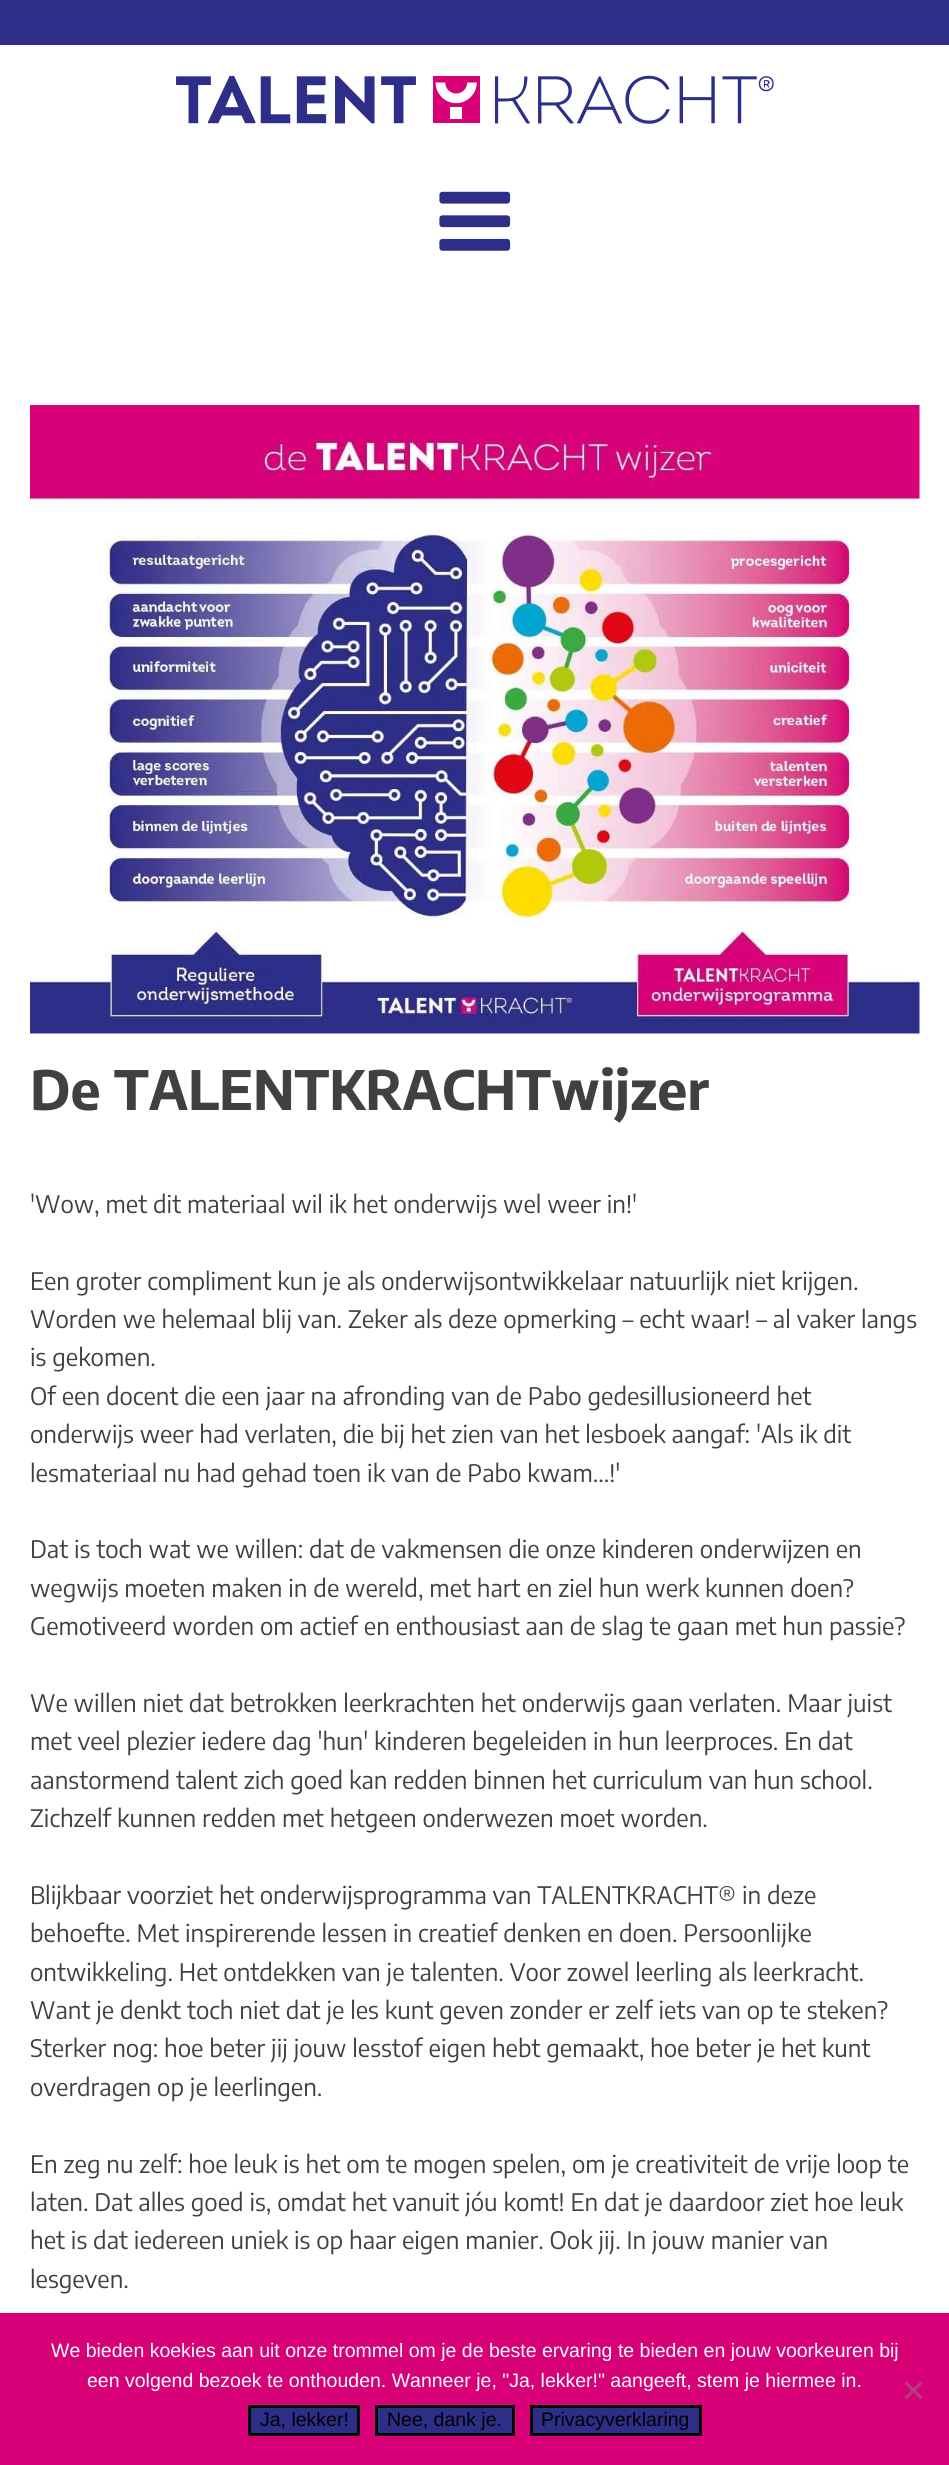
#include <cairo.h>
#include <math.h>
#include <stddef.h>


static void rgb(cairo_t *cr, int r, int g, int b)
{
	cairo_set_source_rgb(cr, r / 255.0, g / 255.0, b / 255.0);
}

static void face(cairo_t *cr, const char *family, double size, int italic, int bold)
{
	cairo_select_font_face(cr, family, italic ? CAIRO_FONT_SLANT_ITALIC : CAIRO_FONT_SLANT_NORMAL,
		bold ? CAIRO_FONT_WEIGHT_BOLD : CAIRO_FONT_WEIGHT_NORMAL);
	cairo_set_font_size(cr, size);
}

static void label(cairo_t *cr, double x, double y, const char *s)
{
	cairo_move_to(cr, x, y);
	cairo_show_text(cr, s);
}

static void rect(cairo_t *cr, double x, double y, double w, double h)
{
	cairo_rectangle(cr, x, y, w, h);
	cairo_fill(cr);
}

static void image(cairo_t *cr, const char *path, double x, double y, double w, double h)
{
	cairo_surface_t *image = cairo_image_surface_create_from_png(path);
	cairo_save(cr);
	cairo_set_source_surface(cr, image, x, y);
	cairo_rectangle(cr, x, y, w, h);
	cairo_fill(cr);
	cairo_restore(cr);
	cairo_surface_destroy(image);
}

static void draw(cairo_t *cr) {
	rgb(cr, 255, 255, 255);
	cairo_paint(cr);
	rgb(cr, 45, 46, 135);
	rect(cr, 0, 0, 949, 45);
	image(cr, "image0.png", 176, 75, 598, 49);
	image(cr, "image1.png", 439, 191, 72, 60);
	image(cr, "image2.png", 30, 405, 890, 629);
	face(cr, "Encode Sans Condensed", 54, 0, 1);
	rgb(cr, 64, 64, 64);
	label(cr, 30, 1110, "De TALENTKRACHTwijzer");
	face(cr, "Encode Sans Condensed", 24, 0, 0);
	label(cr, 30, 1213, "'Wow, met dit materiaal wil ik het onderwijs wel weer in!'");
	label(cr, 30, 1290, "Een groter compliment kun je als onderwijsontwikkelaar natuurlijk niet krijgen.");
	label(cr, 30, 1328, "Worden we helemaal blij van. Zeker als deze opmerking – echt waar! – al vaker langs");
	label(cr, 30, 1366, "is gekomen.");
	label(cr, 30, 1405, "Of een docent die een jaar na afronding van de Pabo gedesillusioneerd het");
	label(cr, 30, 1443, "onderwijs weer had verlaten, die bij het zien van het lesboek aangaf: 'Als ik dit");
	label(cr, 30, 1482, "lesmateriaal nu had gehad toen ik van de Pabo kwam...!'");
	label(cr, 30, 1558, "Dat is toch wat we willen: dat de vakmensen die onze kinderen onderwijzen en");
	label(cr, 30, 1597, "wegwijs moeten maken in de wereld, met hart en ziel hun werk kunnen doen?");
	label(cr, 30, 1635, "Gemotiveerd worden om actief en enthousiast aan de slag te gaan met hun passie?");
	label(cr, 30, 1712, "We willen niet dat betrokken leerkrachten het onderwijs gaan verlaten. Maar juist");
	label(cr, 30, 1750, "met veel plezier iedere dag 'hun' kinderen begeleiden in hun leerproces. En dat");
	label(cr, 30, 1789, "aanstormend talent zich goed kan redden binnen het curriculum van hun school.");
	label(cr, 30, 1827, "Zichzelf kunnen redden met hetgeen onderwezen moet worden.");
	label(cr, 30, 1904, "Blijkbaar voorziet het onderwijsprogramma van TALENTKRACHT® in deze");
	label(cr, 30, 1942, "behoefte. Met inspirerende lessen in creatief denken en doen. Persoonlijke");
	label(cr, 30, 1981, "ontwikkeling. Het ontdekken van je talenten. Voor zowel leerling als leerkracht.");
	label(cr, 30, 2019, "Want je denkt toch niet dat je les kunt geven zonder er zelf iets van op te steken?");
	label(cr, 30, 2057, "Sterker nog: hoe beter jij jouw lesstof eigen hebt gemaakt, hoe beter je het kunt");
	label(cr, 30, 2096, "overdragen op je leerlingen.");
	label(cr, 30, 2173, "En zeg nu zelf: hoe leuk is het om te mogen spelen, om je creativiteit de vrije loop te");
	label(cr, 30, 2211, "laten. Dat alles goed is, omdat het vanuit jóu komt! En dat je daardoor ziet hoe leuk");
	label(cr, 30, 2249, "het is dat iedereen uniek is op haar eigen manier. Ook jij. In jouw manier van");
	label(cr, 30, 2288, "lesgeven.");
	rgb(cr, 215, 0, 119);
	rect(cr, 0, 2313, 949, 152);
	face(cr, "Liberation Sans", 19.5, 0, 0);
	rgb(cr, 255, 255, 255);
	label(cr, 51, 2357, "We bieden koekies aan uit onze trommel om je de beste ervaring te bieden en jouw voorkeuren bij");
	label(cr, 87, 2387, "een volgend bezoek te onthouden. Wanneer je, \"Ja, lekker!\" aangeeft, stem je hiermee in.");
	rgb(cr, 172, 64, 124);
	cairo_new_path(cr);
	cairo_move_to(cr, 920.5, 2381.5);
	cairo_line_to(cr, 922.5, 2383.5);
	cairo_line_to(cr, 906.5, 2399.5);
	cairo_line_to(cr, 904.5, 2397);
	cairo_close_path(cr);
	cairo_fill(cr);
	cairo_new_path(cr);
	cairo_move_to(cr, 904.5, 2383.5);
	cairo_line_to(cr, 906.5, 2381.5);
	cairo_line_to(cr, 922.5, 2397);
	cairo_line_to(cr, 920.5, 2399.5);
	cairo_close_path(cr);
	cairo_fill(cr);
	rgb(cr, 45, 46, 135);
	cairo_rectangle(cr, 249.5, 2406.5, 109, 28);
	cairo_fill_preserve(cr);
	rgb(cr, 0, 0, 0);
	cairo_set_line_width(cr, 3);
	cairo_stroke(cr);
	label(cr, 260, 2426, "Ja, lekker!");
	rgb(cr, 45, 46, 135);
	cairo_rectangle(cr, 376.5, 2406.5, 137, 28);
	cairo_fill_preserve(cr);
	rgb(cr, 0, 0, 0);
	cairo_stroke(cr);
	label(cr, 387, 2426, "Nee, dank je.");
	rgb(cr, 45, 46, 135);
	cairo_rectangle(cr, 531.5, 2406.5, 169, 28);
	cairo_fill_preserve(cr);
	rgb(cr, 0, 0, 0);
	cairo_stroke(cr);
	label(cr, 541, 2426, "Privacyverklaring");
}

int main(void) {
	cairo_surface_t *surface = cairo_image_surface_create(CAIRO_FORMAT_RGB24, 949, 2465);
	cairo_t *cr = cairo_create(surface);
	cairo_font_options_t *options = cairo_font_options_create();
	cairo_font_options_set_hint_metrics(options, CAIRO_HINT_METRICS_OFF);
	cairo_font_options_set_hint_style(options, CAIRO_HINT_STYLE_NONE);
	cairo_set_font_options(cr, options);
	cairo_set_miter_limit(cr, 4);
	draw(cr);
	cairo_surface_write_to_png(surface, "render.png");
	cairo_font_options_destroy(options);
	cairo_destroy(cr);
	cairo_surface_destroy(surface);
	return 0;
}
